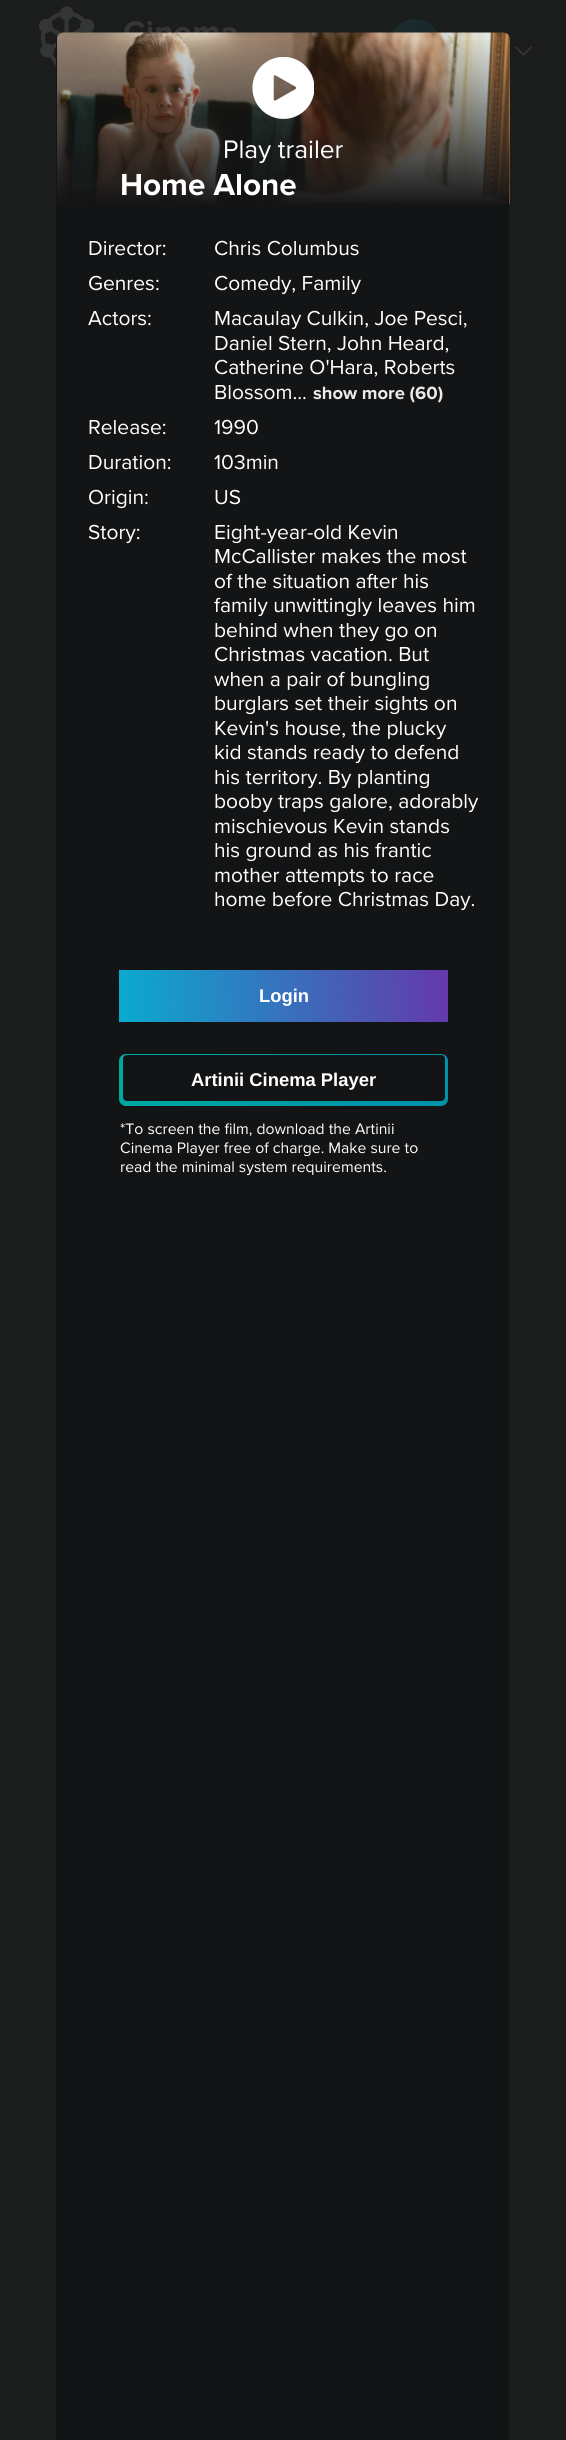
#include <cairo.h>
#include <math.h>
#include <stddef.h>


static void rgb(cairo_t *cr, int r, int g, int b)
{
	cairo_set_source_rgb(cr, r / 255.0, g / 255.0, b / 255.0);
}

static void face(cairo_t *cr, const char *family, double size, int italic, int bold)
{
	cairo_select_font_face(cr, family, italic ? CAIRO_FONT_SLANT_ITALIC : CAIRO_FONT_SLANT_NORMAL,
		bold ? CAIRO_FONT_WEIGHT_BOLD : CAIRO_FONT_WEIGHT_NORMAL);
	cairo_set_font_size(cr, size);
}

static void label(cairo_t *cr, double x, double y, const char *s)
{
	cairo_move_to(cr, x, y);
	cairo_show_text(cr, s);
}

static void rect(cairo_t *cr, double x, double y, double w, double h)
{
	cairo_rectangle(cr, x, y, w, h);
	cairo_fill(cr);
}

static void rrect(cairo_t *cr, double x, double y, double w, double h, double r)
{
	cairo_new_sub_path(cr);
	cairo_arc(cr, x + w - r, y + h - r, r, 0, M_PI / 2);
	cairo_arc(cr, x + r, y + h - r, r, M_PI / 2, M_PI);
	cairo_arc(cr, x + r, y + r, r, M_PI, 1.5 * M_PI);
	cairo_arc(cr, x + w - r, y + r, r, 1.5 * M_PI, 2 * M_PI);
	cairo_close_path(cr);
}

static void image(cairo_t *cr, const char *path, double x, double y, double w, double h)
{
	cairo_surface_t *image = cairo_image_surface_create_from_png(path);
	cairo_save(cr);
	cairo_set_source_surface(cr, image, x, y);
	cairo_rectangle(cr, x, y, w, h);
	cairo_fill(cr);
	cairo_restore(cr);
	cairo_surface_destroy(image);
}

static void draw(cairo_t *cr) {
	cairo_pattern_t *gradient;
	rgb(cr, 27, 28, 28);
	cairo_paint(cr);
	image(cr, "image0.png", 39, 6, 198, 60);
	gradient = cairo_pattern_create_linear(381, 47, 446, 44);
	cairo_pattern_add_color_stop_rgba(gradient, 0, 0.102, 0.173, 0.169, 1);
	cairo_pattern_add_color_stop_rgba(gradient, 1, 0.102, 0.161, 0.173, 1);
	cairo_set_source(cr, gradient);
	cairo_pattern_destroy(gradient);
	rrect(cr, 389, 19, 52, 53, 26);
	cairo_fill(cr);
	cairo_new_path(cr);
	cairo_move_to(cr, 516, 47);
	cairo_line_to(cr, 523.5, 55);
	cairo_line_to(cr, 531.5, 47);
	rgb(cr, 52, 52, 52);
	cairo_set_line_width(cr, 1.8);
	cairo_stroke(cr);
	rgb(cr, 19, 20, 21);
	rrect(cr, 56, 33, 453, 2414, 7);
	cairo_fill(cr);
	image(cr, "image1.png", 57, 32, 453, 173);
	gradient = cairo_pattern_create_linear(283, 36, 283, 207);
	cairo_pattern_add_color_stop_rgba(gradient, 0, 0.075, 0.078, 0.082, 0);
	cairo_pattern_add_color_stop_rgba(gradient, 1, 0.075, 0.078, 0.082, 1);
	cairo_set_source(cr, gradient);
	cairo_pattern_destroy(gradient);
	rect(cr, 57, 40, 452, 165);
	image(cr, "image2.png", 252, 57, 62, 62);
	face(cr, "Proxima Nova", 26.25, 0, 0);
	rgb(cr, 255, 255, 255);
	label(cr, 223, 158, "Play trailer");
	face(cr, "Proxima Nova", 31.5, 0, 1);
	label(cr, 120, 195, "Home Alone");
	face(cr, "Proxima Nova", 21, 0, 0);
	label(cr, 88, 255, "Director:");
	label(cr, 214, 255, "Chris Columbus");
	label(cr, 88, 290, "Genres:");
	label(cr, 214, 290, "Comedy, Family");
	label(cr, 88, 325, "Actors:");
	label(cr, 214, 325, "Macaulay Culkin, Joe Pesci,");
	label(cr, 214, 350, "Daniel Stern, John Heard,");
	label(cr, 214, 374, "Catherine O'Hara, Roberts");
	label(cr, 214, 399, "Blossom...");
	face(cr, "Proxima Nova", 18.4, 0, 1);
	rgb(cr, 234, 234, 234);
	label(cr, 313, 399, "show more (60)");
	face(cr, "Proxima Nova", 21, 0, 0);
	rgb(cr, 255, 255, 255);
	label(cr, 88, 434, "Release:");
	label(cr, 214, 434, "1990");
	label(cr, 88, 469, "Duration:");
	label(cr, 214, 469, "103min");
	label(cr, 88, 504, "Origin:");
	label(cr, 214, 504, "US");
	label(cr, 88, 539, "Story:");
	label(cr, 214, 539, "Eight-year-old Kevin");
	label(cr, 214, 563, "McCallister makes the most");
	label(cr, 214, 588, "of the situation after his");
	label(cr, 214, 612, "family unwittingly leaves him");
	label(cr, 214, 637, "behind when they go on");
	label(cr, 214, 661, "Christmas vacation. But");
	label(cr, 214, 686, "when a pair of bungling");
	label(cr, 214, 710, "burglars set their sights on");
	label(cr, 214, 735, "Kevin's house, the plucky");
	label(cr, 214, 759, "kid stands ready to defend");
	label(cr, 214, 784, "his territory. By planting");
	label(cr, 214, 808, "booby traps galore, adorably");
	label(cr, 214, 833, "mischievous Kevin stands");
	label(cr, 214, 857, "his ground as his frantic");
	label(cr, 214, 882, "mother attempts to race");
	label(cr, 214, 906, "home before Christmas Day.");
	gradient = cairo_pattern_create_linear(82, 1007, 468, 984);
	cairo_pattern_add_color_stop_rgba(gradient, 0, 0, 0.718, 0.827, 1);
	cairo_pattern_add_color_stop_rgba(gradient, 1, 0.412, 0.196, 0.659, 1);
	cairo_set_source(cr, gradient);
	cairo_pattern_destroy(gradient);
	rect(cr, 119, 970, 329, 52);
	face(cr, "Liberation Sans", 18.4, 0, 1);
	rgb(cr, 255, 255, 255);
	label(cr, 259, 1002, "Login");
	gradient = cairo_pattern_create_linear(82, 1091, 468, 1068);
	cairo_pattern_add_color_stop_rgba(gradient, 0, 0, 0.671, 0.62, 1);
	cairo_pattern_add_color_stop_rgba(gradient, 1, 0, 0.561, 0.675, 1);
	cairo_set_source(cr, gradient);
	cairo_pattern_destroy(gradient);
	rrect(cr, 119, 1054, 329, 52, 7);
	cairo_fill(cr);
	rgb(cr, 19, 20, 21);
	rrect(cr, 123, 1055, 322, 46, 4);
	cairo_fill(cr);
	rgb(cr, 255, 255, 255);
	label(cr, 191, 1086, "Artinii Cinema Player");
	face(cr, "Proxima Nova", 15.75, 0, 0);
	label(cr, 120, 1134, "*To screen the film, download the Artinii");
	label(cr, 120, 1153, "Cinema Player free of charge. Make sure to");
	label(cr, 120, 1172, "read the minimal system requirements.");
}

int main(void) {
	cairo_surface_t *surface = cairo_image_surface_create(CAIRO_FORMAT_RGB24, 566, 2440);
	cairo_t *cr = cairo_create(surface);
	cairo_font_options_t *options = cairo_font_options_create();
	cairo_font_options_set_hint_metrics(options, CAIRO_HINT_METRICS_OFF);
	cairo_font_options_set_hint_style(options, CAIRO_HINT_STYLE_NONE);
	cairo_set_font_options(cr, options);
	cairo_set_miter_limit(cr, 4);
	draw(cr);
	cairo_surface_write_to_png(surface, "render.png");
	cairo_font_options_destroy(options);
	cairo_destroy(cr);
	cairo_surface_destroy(surface);
	return 0;
}
